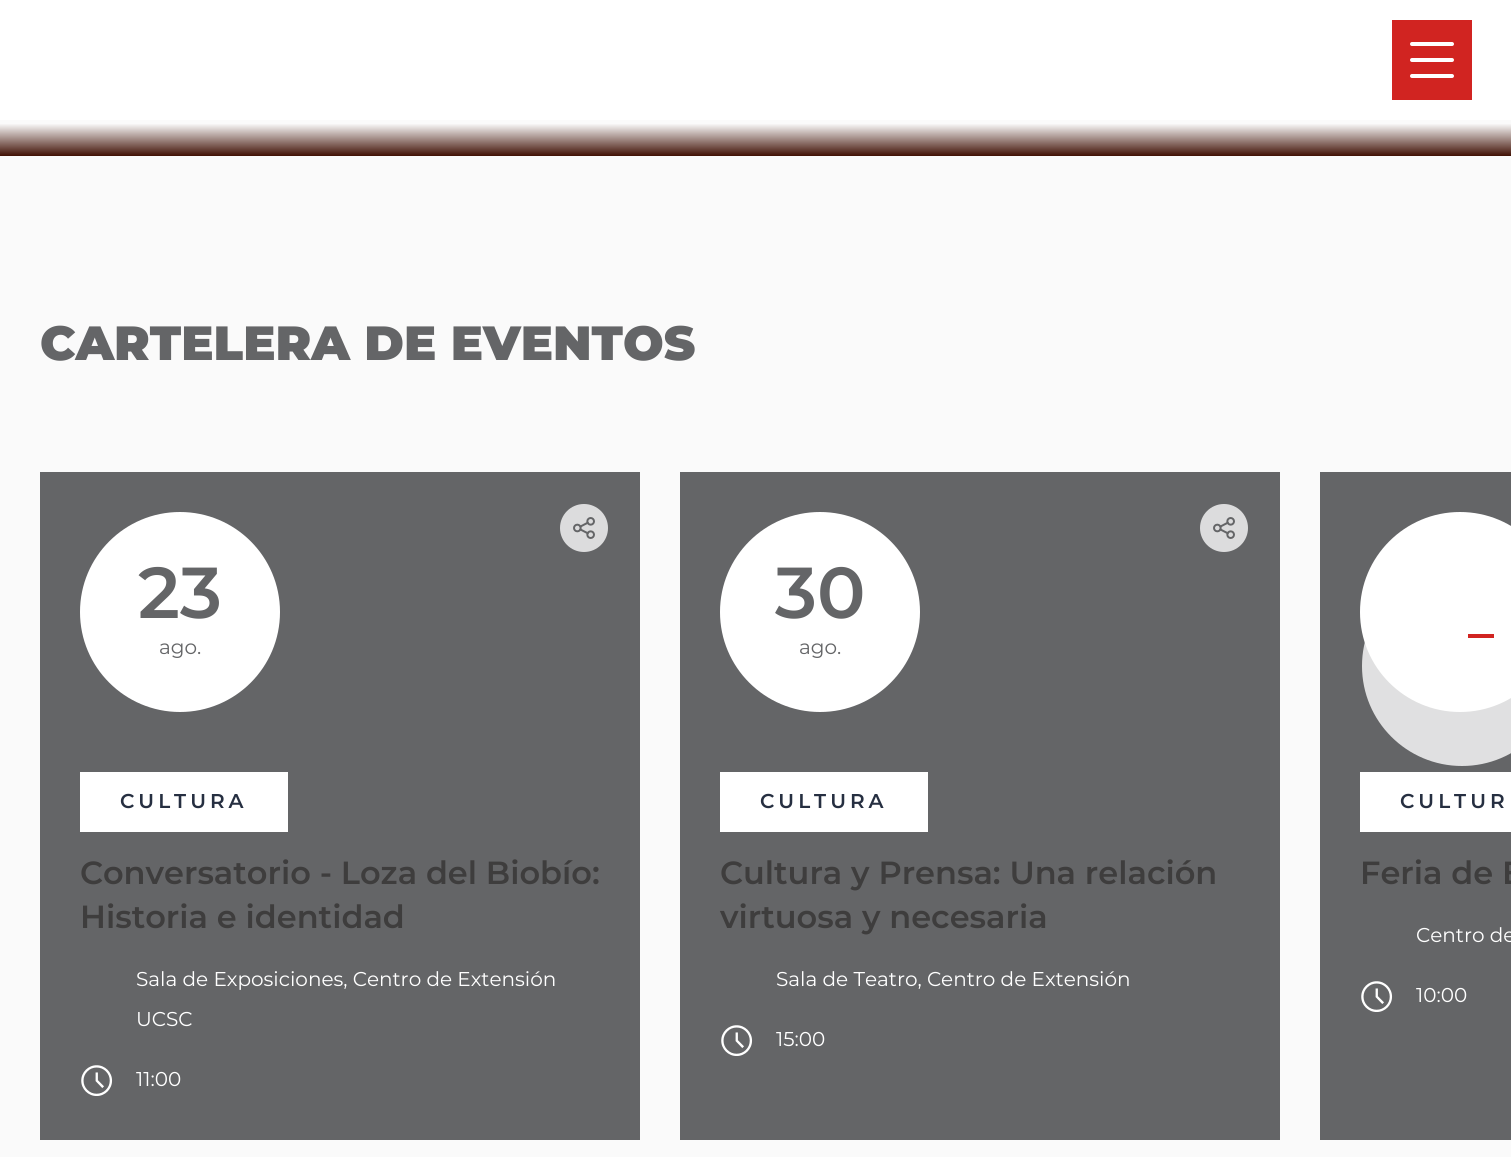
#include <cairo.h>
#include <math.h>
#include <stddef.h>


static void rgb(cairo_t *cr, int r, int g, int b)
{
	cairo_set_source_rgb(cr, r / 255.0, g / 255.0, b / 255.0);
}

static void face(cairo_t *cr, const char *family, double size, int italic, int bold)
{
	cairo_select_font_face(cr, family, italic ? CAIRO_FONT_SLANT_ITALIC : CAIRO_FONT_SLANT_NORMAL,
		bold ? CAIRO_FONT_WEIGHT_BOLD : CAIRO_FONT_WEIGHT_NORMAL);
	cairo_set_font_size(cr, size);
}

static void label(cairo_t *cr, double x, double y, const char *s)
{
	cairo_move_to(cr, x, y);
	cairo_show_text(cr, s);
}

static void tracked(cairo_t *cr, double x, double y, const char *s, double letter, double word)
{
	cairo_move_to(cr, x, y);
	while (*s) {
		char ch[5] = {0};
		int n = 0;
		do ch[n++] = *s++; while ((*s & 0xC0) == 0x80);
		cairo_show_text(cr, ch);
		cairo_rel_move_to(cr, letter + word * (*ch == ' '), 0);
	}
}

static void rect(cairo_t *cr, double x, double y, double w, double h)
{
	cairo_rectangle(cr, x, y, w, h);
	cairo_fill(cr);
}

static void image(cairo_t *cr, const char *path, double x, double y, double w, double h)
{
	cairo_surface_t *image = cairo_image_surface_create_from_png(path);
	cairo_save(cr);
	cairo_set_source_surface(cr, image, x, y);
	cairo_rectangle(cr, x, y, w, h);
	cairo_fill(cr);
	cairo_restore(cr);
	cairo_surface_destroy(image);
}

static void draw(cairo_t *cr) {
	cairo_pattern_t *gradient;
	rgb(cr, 250, 250, 250);
	cairo_paint(cr);
	rgb(cr, 255, 255, 255);
	rect(cr, 0, 0, 1511, 120);
	rgb(cr, 209, 36, 33);
	rect(cr, 1392, 20, 80, 80);
	cairo_new_path(cr);
	cairo_move_to(cr, 1412, 44);
	cairo_line_to(cr, 1452, 44);
	cairo_move_to(cr, 1412, 60);
	cairo_line_to(cr, 1452, 60);
	cairo_move_to(cr, 1412, 76);
	cairo_line_to(cr, 1452, 76);
	rgb(cr, 255, 255, 255);
	cairo_set_line_width(cr, 4);
	cairo_set_line_cap(cr, CAIRO_LINE_CAP_ROUND);
	cairo_set_line_join(cr, CAIRO_LINE_JOIN_ROUND);
	cairo_stroke(cr);
	gradient = cairo_pattern_create_linear(756, 156, 756, 120);
	cairo_pattern_add_color_stop_rgba(gradient, 0, 0.251, 0.063, 0.016, 1);
	cairo_pattern_add_color_stop_rgba(gradient, 0.9, 0.98, 0.98, 0.98, 1);
	cairo_set_source(cr, gradient);
	cairo_pattern_destroy(gradient);
	rect(cr, 0, 124, 1511, 32);
	face(cr, "Montserrat Black", 48, 0, 0);
	rgb(cr, 100, 101, 103);
	label(cr, 40, 360, "CARTELERA DE EVENTOS");
	rect(cr, 40, 472, 600, 668);
	rgb(cr, 220, 220, 221);
	cairo_new_path(cr);
	cairo_arc(cr, 584, 528, 24, 0, 2 * M_PI);
	cairo_fill(cr);
	image(cr, "image0.png", 573, 517, 22, 22);
	rgb(cr, 255, 255, 255);
	cairo_arc(cr, 180, 612, 100, 0, 2 * M_PI);
	cairo_fill(cr);
	face(cr, "Montserrat SemiBold", 72, 0, 0);
	rgb(cr, 100, 101, 103);
	label(cr, 138, 618, "23");
	face(cr, "Montserrat", 20, 0, 0);
	label(cr, 159, 654, "ago.");
	rgb(cr, 255, 255, 255);
	rect(cr, 80, 772, 208, 60);
	face(cr, "Montserrat SemiBold", 20, 0, 0);
	rgb(cr, 38, 47, 65);
	tracked(cr, 120, 808, "CULTURA", 4, 0);
	face(cr, "Montserrat SemiBold", 32, 0, 0);
	rgb(cr, 62, 61, 61);
	label(cr, 80, 884, "Conversatorio - Loza del Biobío:");
	label(cr, 80, 928, "Historia e identidad");
	face(cr, "Montserrat", 20, 0, 0);
	rgb(cr, 255, 255, 255);
	label(cr, 136, 986, "Sala de Exposiciones, Centro de Extensión");
	label(cr, 136, 1026, "UCSC");
	image(cr, "image1.png", 81, 1065, 32, 31);
	label(cr, 136, 1086, "11:00");
	rgb(cr, 100, 101, 103);
	rect(cr, 680, 472, 600, 668);
	rgb(cr, 220, 220, 221);
	cairo_new_path(cr);
	cairo_arc(cr, 1224, 528, 24, 0, 2 * M_PI);
	cairo_fill(cr);
	image(cr, "image0.png", 1213, 517, 22, 22);
	rgb(cr, 255, 255, 255);
	cairo_arc(cr, 820, 612, 100, 0, 2 * M_PI);
	cairo_fill(cr);
	face(cr, "Montserrat SemiBold", 72, 0, 0);
	rgb(cr, 100, 101, 103);
	label(cr, 775, 618, "30");
	face(cr, "Montserrat", 20, 0, 0);
	label(cr, 799, 654, "ago.");
	rgb(cr, 255, 255, 255);
	rect(cr, 720, 772, 208, 60);
	face(cr, "Montserrat SemiBold", 20, 0, 0);
	rgb(cr, 38, 47, 65);
	tracked(cr, 760, 808, "CULTURA", 4, 0);
	face(cr, "Montserrat SemiBold", 32, 0, 0);
	rgb(cr, 62, 61, 61);
	label(cr, 720, 884, "Cultura y Prensa: Una relación");
	label(cr, 720, 928, "virtuosa y necesaria");
	face(cr, "Montserrat", 20, 0, 0);
	rgb(cr, 255, 255, 255);
	label(cr, 776, 986, "Sala de Teatro, Centro de Extensión");
	image(cr, "image1.png", 721, 1025, 32, 31);
	label(cr, 776, 1046, "15:00");
	rgb(cr, 100, 101, 103);
	rect(cr, 1320, 472, 191, 668);
	rgb(cr, 255, 255, 255);
	cairo_new_path(cr);
	cairo_arc(cr, 1460, 612, 100, 0, 2 * M_PI);
	cairo_fill(cr);
	rect(cr, 1360, 772, 151, 60);
	face(cr, "Montserrat SemiBold", 20, 0, 0);
	rgb(cr, 38, 47, 65);
	tracked(cr, 1400, 808, "CULTUR", 4, 0);
	face(cr, "Montserrat SemiBold", 32, 0, 0);
	rgb(cr, 62, 61, 61);
	label(cr, 1360, 884, "Feria de E");
	face(cr, "Montserrat", 20, 0, 0);
	rgb(cr, 255, 255, 255);
	label(cr, 1416, 942, "Centro de");
	image(cr, "image1.png", 1361, 981, 32, 31);
	label(cr, 1416, 1002, "10:00");
	cairo_set_source_rgba(cr, 1, 1, 1, 0.8);
	cairo_new_path(cr);
	cairo_arc(cr, 1462, 666, 100, 0, 2 * M_PI);
	cairo_fill(cr);
	rgb(cr, 209, 36, 33);
	rect(cr, 1468, 634, 26, 4);
}

int main(void) {
	cairo_surface_t *surface = cairo_image_surface_create(CAIRO_FORMAT_RGB24, 1511, 1157);
	cairo_t *cr = cairo_create(surface);
	cairo_font_options_t *options = cairo_font_options_create();
	cairo_font_options_set_hint_metrics(options, CAIRO_HINT_METRICS_OFF);
	cairo_font_options_set_hint_style(options, CAIRO_HINT_STYLE_NONE);
	cairo_set_font_options(cr, options);
	cairo_set_miter_limit(cr, 4);
	draw(cr);
	cairo_surface_write_to_png(surface, "render.png");
	cairo_font_options_destroy(options);
	cairo_destroy(cr);
	cairo_surface_destroy(surface);
	return 0;
}
